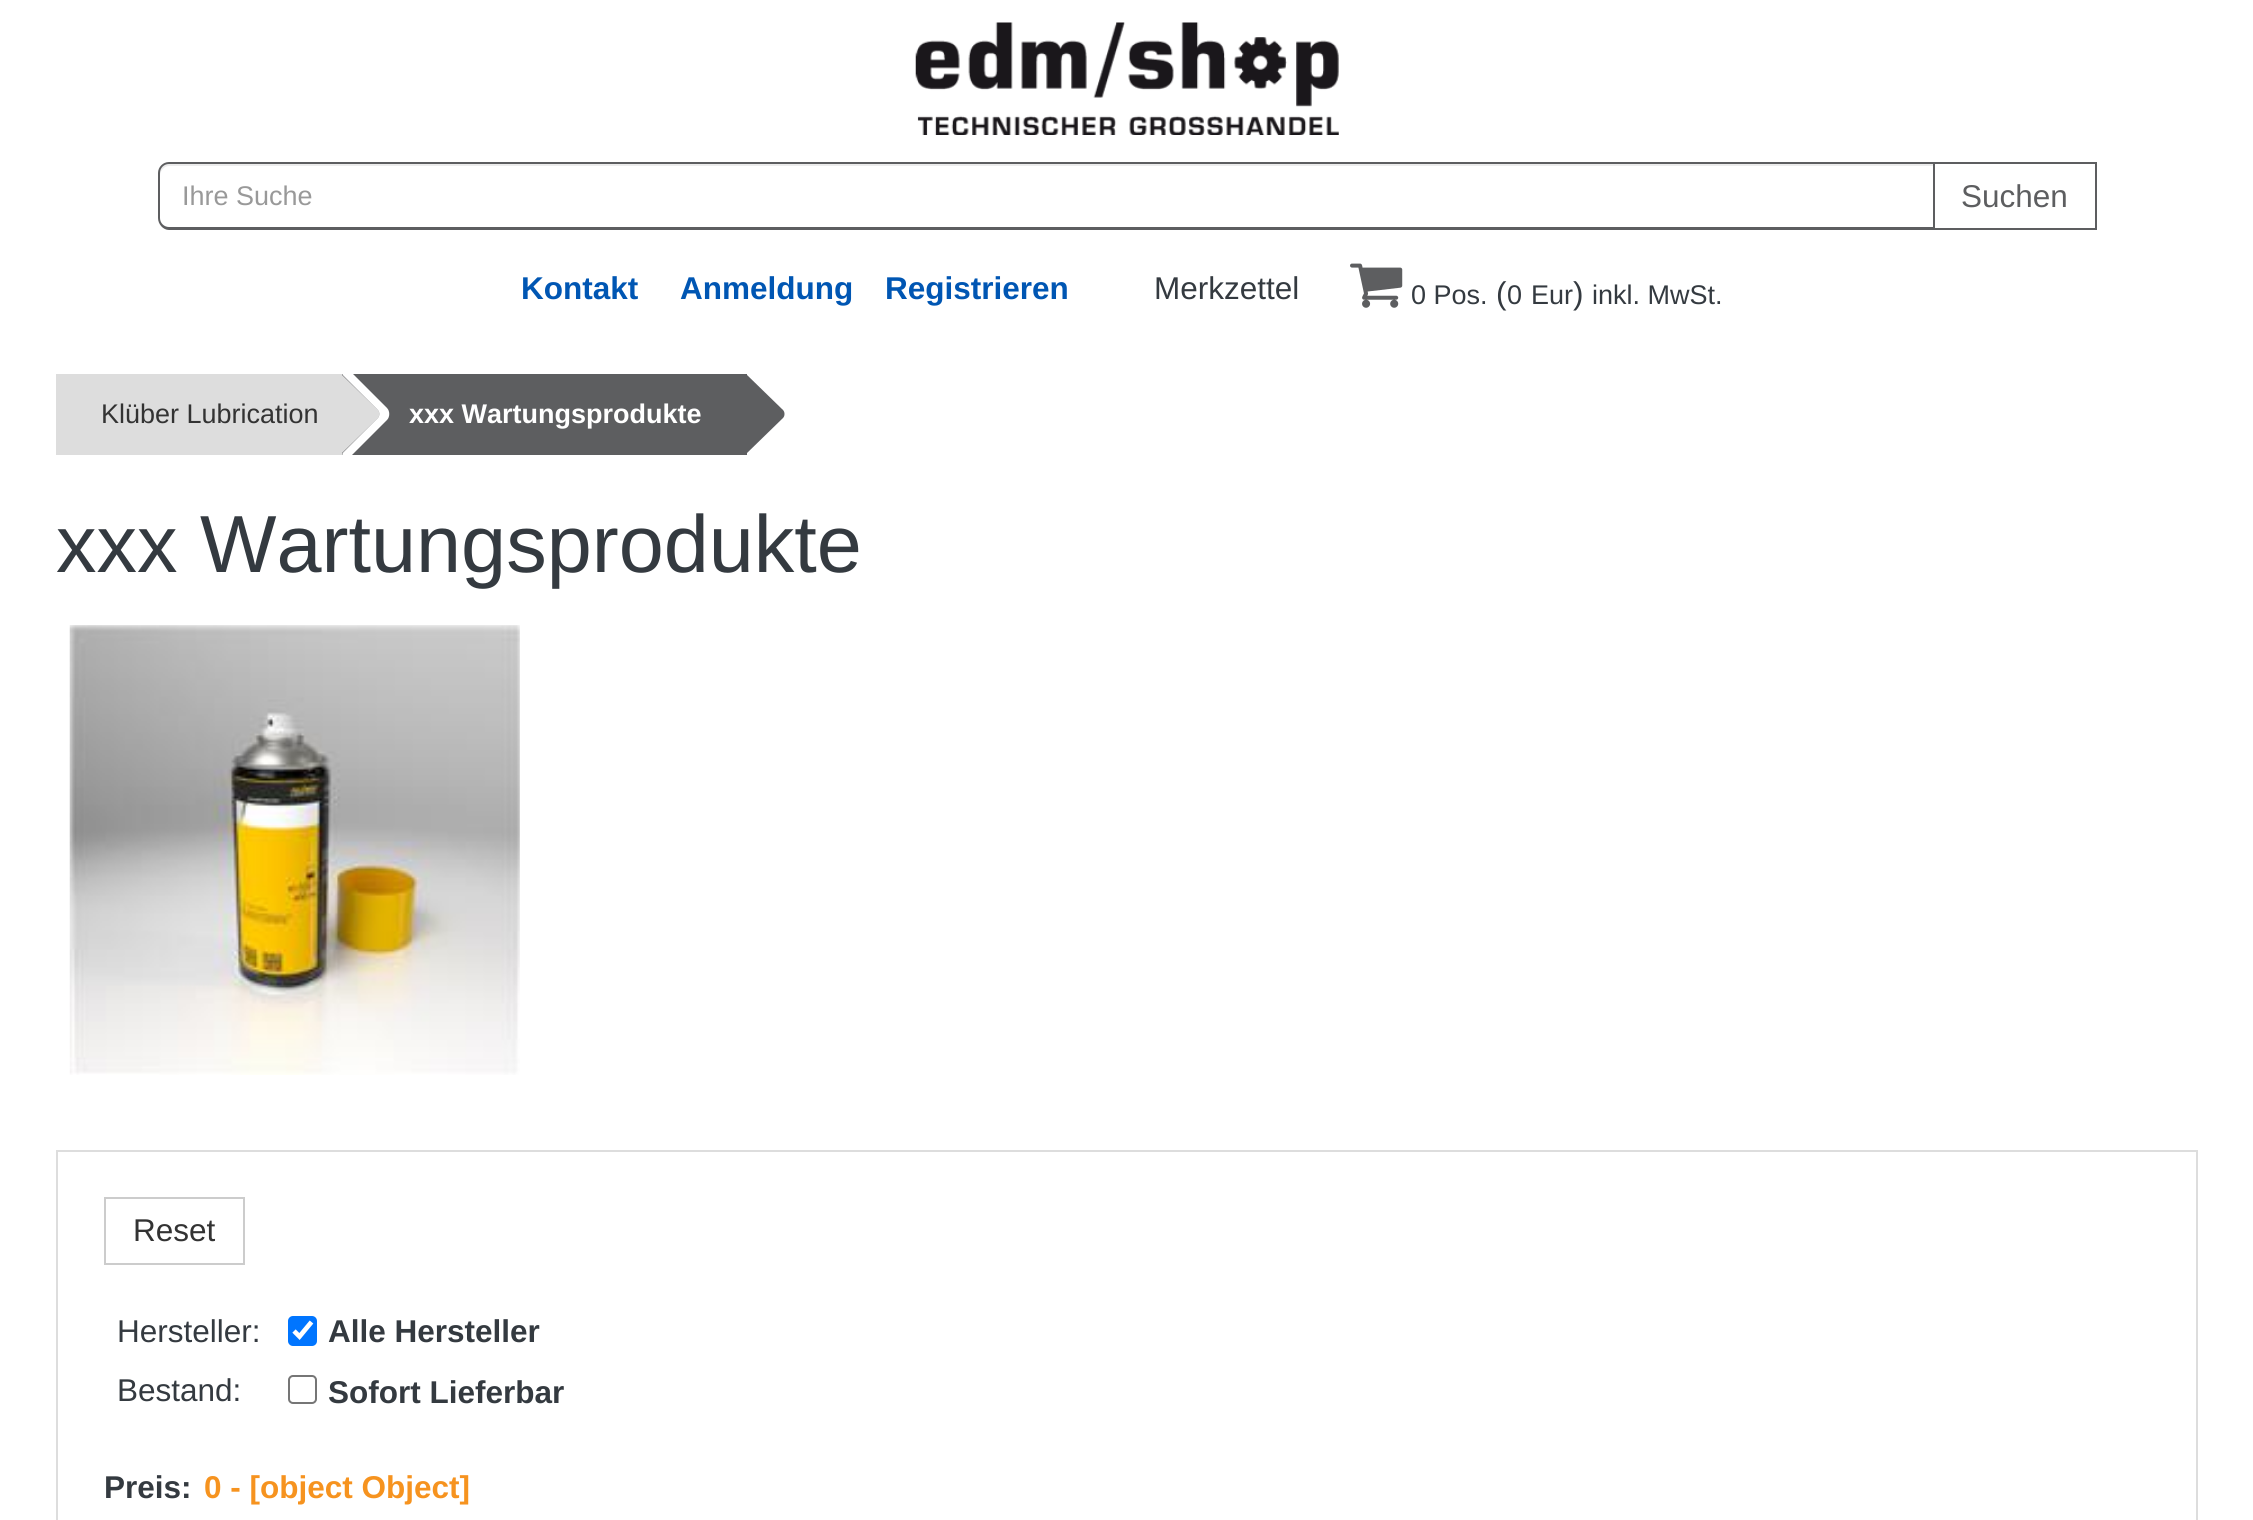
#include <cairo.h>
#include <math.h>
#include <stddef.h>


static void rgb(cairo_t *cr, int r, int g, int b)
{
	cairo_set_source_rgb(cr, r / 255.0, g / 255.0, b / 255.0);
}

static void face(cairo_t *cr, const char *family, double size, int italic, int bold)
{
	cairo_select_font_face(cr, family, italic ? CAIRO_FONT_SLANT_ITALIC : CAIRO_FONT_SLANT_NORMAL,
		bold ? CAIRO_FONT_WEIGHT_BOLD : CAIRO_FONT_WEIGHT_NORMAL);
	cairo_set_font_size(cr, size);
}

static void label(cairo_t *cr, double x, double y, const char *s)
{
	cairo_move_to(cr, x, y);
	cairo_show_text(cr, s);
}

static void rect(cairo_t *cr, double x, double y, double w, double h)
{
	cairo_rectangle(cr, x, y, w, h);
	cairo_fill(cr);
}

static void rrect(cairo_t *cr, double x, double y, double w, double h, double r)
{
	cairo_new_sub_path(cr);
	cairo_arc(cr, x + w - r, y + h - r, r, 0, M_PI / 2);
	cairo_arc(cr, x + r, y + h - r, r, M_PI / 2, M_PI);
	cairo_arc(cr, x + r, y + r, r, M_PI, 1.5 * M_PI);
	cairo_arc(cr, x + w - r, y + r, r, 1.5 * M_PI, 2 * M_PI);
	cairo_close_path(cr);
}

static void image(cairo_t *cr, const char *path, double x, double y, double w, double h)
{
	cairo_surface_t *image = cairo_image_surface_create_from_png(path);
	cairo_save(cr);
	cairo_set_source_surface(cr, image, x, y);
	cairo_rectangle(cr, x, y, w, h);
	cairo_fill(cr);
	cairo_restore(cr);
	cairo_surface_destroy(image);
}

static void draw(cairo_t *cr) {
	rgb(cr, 255, 255, 255);
	cairo_paint(cr);
	image(cr, "image0.png", 915, 22, 424, 113);
	rgb(cr, 236, 236, 236);
	cairo_new_path(cr);
	cairo_move_to(cr, 169, 166);
	cairo_line_to(cr, 1935, 166);
	cairo_line_to(cr, 1935, 164);
	cairo_line_to(cr, 169, 164);
	cairo_curve_to(cr, 164, 164, 160, 168, 160, 173);
	cairo_line_to(cr, 160, 176);
	cairo_curve_to(cr, 160, 171, 164, 166, 169, 166);
	cairo_close_path(cr);
	cairo_fill(cr);
	rgb(cr, 93, 94, 96);
	cairo_set_fill_rule(cr, CAIRO_FILL_RULE_EVEN_ODD);
	cairo_new_path(cr);
	cairo_move_to(cr, 169, 162);
	cairo_line_to(cr, 1935, 162);
	cairo_line_to(cr, 1935, 230);
	cairo_line_to(cr, 169, 230);
	cairo_curve_to(cr, 163, 230, 158, 224, 158, 218);
	cairo_line_to(cr, 158, 173);
	cairo_curve_to(cr, 158, 167, 163, 162, 169, 162);
	cairo_close_path(cr);
	cairo_move_to(cr, 169, 164);
	cairo_line_to(cr, 1935, 164);
	cairo_line_to(cr, 1935, 227);
	cairo_line_to(cr, 169, 227);
	cairo_curve_to(cr, 164, 227, 160, 223, 160, 218);
	cairo_line_to(cr, 160, 173);
	cairo_curve_to(cr, 160, 168, 164, 164, 169, 164);
	cairo_close_path(cr);
	cairo_fill(cr);
	face(cr, "Liberation Sans", 27, 0, 0);
	rgb(cr, 153, 153, 153);
	label(cr, 182, 205, "Ihre Suche");
	cairo_rectangle(cr, 1934, 163, 162, 66);
	rgb(cr, 93, 94, 96);
	cairo_stroke(cr);
	face(cr, "Liberation Sans", 31.5, 0, 0);
	label(cr, 1961, 207, "Suchen");
	face(cr, "Liberation Sans", 31.5, 0, 1);
	rgb(cr, 0, 86, 179);
	label(cr, 521, 299, "Kontakt");
	label(cr, 680, 299, "Anmeldung");
	label(cr, 885, 299, "Registrieren");
	face(cr, "Liberation Sans", 31.5, 0, 0);
	rgb(cr, 52, 58, 64);
	label(cr, 1154, 299, "Merkzettel");
	image(cr, "image1.png", 1350, 263, 53, 45);
	face(cr, "Liberation Sans", 27, 0, 0);
	label(cr, 1411, 304, "0 Pos.");
	face(cr, "Liberation Sans", 31.5, 0, 0);
	label(cr, 1496, 304, "(");
	face(cr, "Liberation Sans", 27, 0, 0);
	label(cr, 1507, 304, "0");
	label(cr, 1531, 304, "Eur");
	face(cr, "Liberation Sans", 31.5, 0, 0);
	label(cr, 1573, 304, ")");
	face(cr, "Liberation Sans", 27, 0, 0);
	label(cr, 1592, 304, "inkl. MwSt.");
	rgb(cr, 221, 221, 221);
	rect(cr, 56, 374, 286, 81);
	rgb(cr, 51, 51, 51);
	label(cr, 101, 423, "Klüber Lubrication");
	rgb(cr, 93, 94, 96);
	rect(cr, 342, 374, 405, 81);
	rgb(cr, 255, 255, 255);
	cairo_set_fill_rule(cr, CAIRO_FILL_RULE_WINDING);
	cairo_new_path(cr);
	cairo_move_to(cr, 348, 369);
	cairo_line_to(cr, 343, 375);
	cairo_line_to(cr, 378, 410);
	cairo_curve_to(cr, 380, 412, 380, 416, 378, 418);
	cairo_line_to(cr, 343, 453);
	cairo_line_to(cr, 348, 459);
	cairo_line_to(cr, 387, 420);
	cairo_curve_to(cr, 390, 417, 390, 411, 387, 408);
	cairo_close_path(cr);
	cairo_fill(cr);
	cairo_new_path(cr);
	cairo_move_to(cr, 346, 369);
	cairo_line_to(cr, 342, 374);
	cairo_line_to(cr, 378, 410);
	cairo_curve_to(cr, 380, 412, 380, 416, 378, 418);
	cairo_line_to(cr, 342, 454);
	cairo_line_to(cr, 346, 459);
	cairo_line_to(cr, 385, 420);
	cairo_curve_to(cr, 388, 417, 388, 411, 385, 408);
	cairo_close_path(cr);
	cairo_fill(cr);
	rgb(cr, 221, 221, 221);
	cairo_new_path(cr);
	cairo_move_to(cr, 341, 374);
	cairo_line_to(cr, 378, 410);
	cairo_curve_to(cr, 380, 412, 380, 416, 378, 418);
	cairo_line_to(cr, 341, 454);
	cairo_curve_to(cr, 319, 432, 319, 396, 341, 374);
	cairo_close_path(cr);
	cairo_fill(cr);
	face(cr, "Liberation Sans", 27, 0, 1);
	rgb(cr, 255, 255, 255);
	label(cr, 409, 423, "xxx Wartungsprodukte");
	rgb(cr, 93, 94, 96);
	cairo_new_path(cr);
	cairo_move_to(cr, 746, 374);
	cairo_line_to(cr, 783, 410);
	cairo_curve_to(cr, 785, 412, 785, 416, 783, 418);
	cairo_line_to(cr, 746, 454);
	cairo_curve_to(cr, 724, 432, 724, 396, 746, 374);
	cairo_close_path(cr);
	cairo_fill(cr);
	face(cr, "Liberation Sans", 81, 0, 0);
	rgb(cr, 52, 58, 64);
	label(cr, 56, 572, "xxx Wartungsprodukte");
	image(cr, "image2.png", 69, 625, 451, 450);
	cairo_rectangle(cr, 57, 1151, 2140, 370);
	rgb(cr, 221, 221, 221);
	cairo_stroke(cr);
	cairo_rectangle(cr, 105, 1198, 139, 66);
	rgb(cr, 204, 204, 204);
	cairo_stroke(cr);
	face(cr, "Liberation Sans", 31.5, 0, 0);
	rgb(cr, 51, 51, 51);
	label(cr, 133, 1241, "Reset");
	rgb(cr, 52, 58, 64);
	label(cr, 117, 1342, "Hersteller:");
	rgb(cr, 0, 117, 255);
	rrect(cr, 288, 1316, 29, 30, 5);
	cairo_fill(cr);
	cairo_new_path(cr);
	cairo_move_to(cr, 294, 1331);
	cairo_line_to(cr, 299.5, 1336.5);
	cairo_line_to(cr, 311.5, 1322);
	rgb(cr, 255, 255, 255);
	cairo_set_line_width(cr, 4.7);
	cairo_stroke(cr);
	face(cr, "Liberation Sans", 31.5, 0, 1);
	rgb(cr, 52, 58, 64);
	label(cr, 328, 1342, "Alle Hersteller");
	face(cr, "Liberation Sans", 31.5, 0, 0);
	label(cr, 117, 1401, "Bestand:");
	rrect(cr, 289, 1376, 27, 27, 4);
	rgb(cr, 118, 118, 118);
	cairo_set_line_width(cr, 2);
	cairo_stroke(cr);
	face(cr, "Liberation Sans", 31.5, 0, 1);
	rgb(cr, 52, 58, 64);
	label(cr, 328, 1403, "Sofort Lieferbar");
	label(cr, 104, 1498, "Preis:");
	rgb(cr, 246, 147, 31);
	label(cr, 204, 1498, "0 - [object Object]");
}

int main(void) {
	cairo_surface_t *surface = cairo_image_surface_create(CAIRO_FORMAT_RGB24, 2253, 1520);
	cairo_t *cr = cairo_create(surface);
	cairo_font_options_t *options = cairo_font_options_create();
	cairo_font_options_set_hint_metrics(options, CAIRO_HINT_METRICS_OFF);
	cairo_font_options_set_hint_style(options, CAIRO_HINT_STYLE_NONE);
	cairo_set_font_options(cr, options);
	cairo_set_miter_limit(cr, 4);
	draw(cr);
	cairo_surface_write_to_png(surface, "render.png");
	cairo_font_options_destroy(options);
	cairo_destroy(cr);
	cairo_surface_destroy(surface);
	return 0;
}
